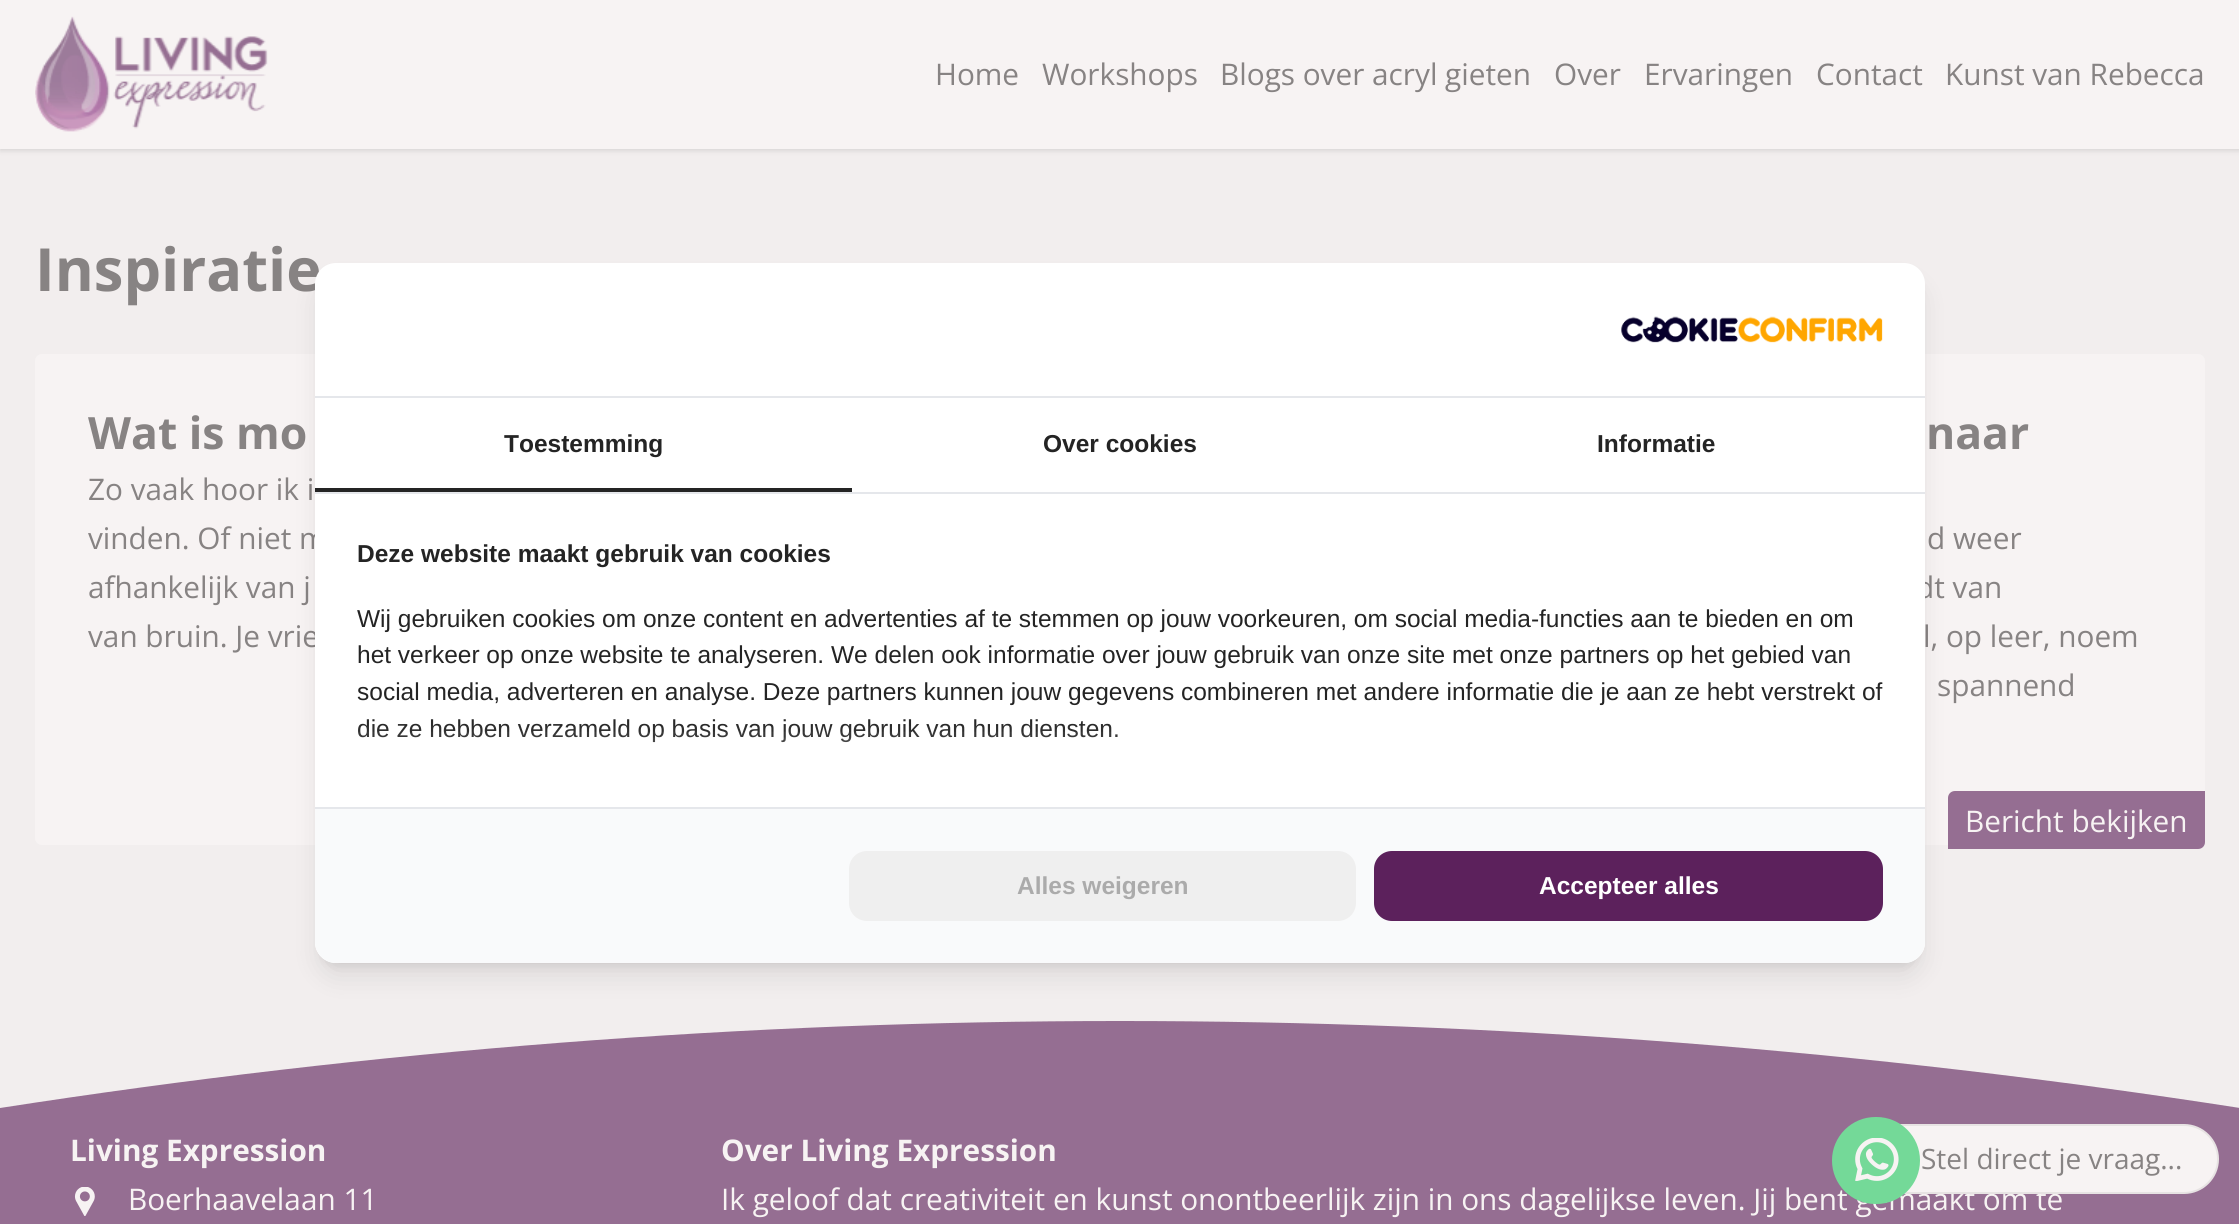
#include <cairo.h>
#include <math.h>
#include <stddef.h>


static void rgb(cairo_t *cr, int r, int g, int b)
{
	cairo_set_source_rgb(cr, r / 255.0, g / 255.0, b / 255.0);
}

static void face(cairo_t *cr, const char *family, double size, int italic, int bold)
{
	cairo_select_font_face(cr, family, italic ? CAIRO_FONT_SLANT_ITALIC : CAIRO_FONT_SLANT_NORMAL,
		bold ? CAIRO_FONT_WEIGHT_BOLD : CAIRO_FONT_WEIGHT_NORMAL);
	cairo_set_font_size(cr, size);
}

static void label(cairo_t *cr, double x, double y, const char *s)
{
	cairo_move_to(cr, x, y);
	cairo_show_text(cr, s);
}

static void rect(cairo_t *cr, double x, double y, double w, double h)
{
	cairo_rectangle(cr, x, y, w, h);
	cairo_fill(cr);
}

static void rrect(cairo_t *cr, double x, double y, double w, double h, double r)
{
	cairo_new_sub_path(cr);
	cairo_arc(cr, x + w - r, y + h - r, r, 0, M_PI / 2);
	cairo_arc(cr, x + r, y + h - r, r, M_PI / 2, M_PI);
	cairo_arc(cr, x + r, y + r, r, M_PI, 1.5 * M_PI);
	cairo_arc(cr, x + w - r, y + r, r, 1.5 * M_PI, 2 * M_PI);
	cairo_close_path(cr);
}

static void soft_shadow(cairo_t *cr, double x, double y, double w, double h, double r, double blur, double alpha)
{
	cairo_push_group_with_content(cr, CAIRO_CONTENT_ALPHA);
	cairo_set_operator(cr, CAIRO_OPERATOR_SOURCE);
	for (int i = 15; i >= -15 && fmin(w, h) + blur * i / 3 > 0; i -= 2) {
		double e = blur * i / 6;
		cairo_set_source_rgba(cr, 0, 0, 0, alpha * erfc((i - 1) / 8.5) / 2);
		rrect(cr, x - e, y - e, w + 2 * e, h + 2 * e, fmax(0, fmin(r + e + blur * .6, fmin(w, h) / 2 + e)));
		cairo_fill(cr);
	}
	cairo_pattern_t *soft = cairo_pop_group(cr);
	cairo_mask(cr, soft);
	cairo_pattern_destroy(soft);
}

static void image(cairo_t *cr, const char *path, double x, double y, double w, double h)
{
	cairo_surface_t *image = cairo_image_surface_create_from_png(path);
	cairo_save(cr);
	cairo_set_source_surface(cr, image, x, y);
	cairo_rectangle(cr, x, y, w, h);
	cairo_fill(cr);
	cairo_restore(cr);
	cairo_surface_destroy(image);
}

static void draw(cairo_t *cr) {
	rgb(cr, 242, 238, 238);
	cairo_paint(cr);
	rgb(cr, 94, 90, 90);
	soft_shadow(cr, 0, 2, 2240, 149, 0, 2, 0.09);
	soft_shadow(cr, 0, 2, 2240, 149, 0, 2.5, 0.09);
	rgb(cr, 247, 243, 243);
	rect(cr, 0, 0, 2239, 149);
	image(cr, "image0.png", 35, 16, 233, 116);
	face(cr, "Open Sans", 29.75, 0, 0);
	rgb(cr, 135, 131, 131);
	label(cr, 935, 85, "Home");
	label(cr, 1042, 85, "Workshops");
	label(cr, 1220, 85, "Blogs over acryl gieten");
	label(cr, 1554, 85, "Over");
	label(cr, 1644, 85, "Ervaringen");
	label(cr, 1816, 85, "Contact");
	label(cr, 1945, 85, "Kunst van Rebecca");
	face(cr, "Open Sans", 59.5, 0, 1);
	label(cr, 35, 291, "Inspiratie");
	rgb(cr, 247, 243, 243);
	rrect(cr, 35, 354, 1059, 491, 7);
	cairo_fill(cr);
	face(cr, "Open Sans", 44.5, 0, 1);
	rgb(cr, 135, 131, 131);
	label(cr, 88, 449, "Wat is mo");
	face(cr, "Open Sans", 29.75, 0, 0);
	label(cr, 88, 500, "Zo vaak hoor ik i");
	label(cr, 88, 549, "vinden. Of niet m");
	label(cr, 88, 598, "afhankelijk van j");
	label(cr, 88, 647, "van bruin. Je vrie");
	rgb(cr, 247, 243, 243);
	rrect(cr, 1146, 354, 1059, 491, 7);
	cairo_fill(cr);
	face(cr, "Open Sans", 44.5, 0, 1);
	rgb(cr, 135, 131, 131);
	label(cr, 1926, 449, "naar");
	face(cr, "Open Sans", 29.75, 0, 0);
	label(cr, 1927, 549, "d weer");
	label(cr, 1916, 598, "dt van");
	label(cr, 1923, 647, "l, op leer, noem");
	label(cr, 1937, 696, "spannend");
	rgb(cr, 149, 110, 146);
	cairo_new_path(cr);
	cairo_move_to(cr, 1955, 791);
	cairo_line_to(cr, 2205, 791);
	cairo_line_to(cr, 2205, 842);
	cairo_curve_to(cr, 2205, 846, 2202, 849, 2198, 849);
	cairo_line_to(cr, 1948, 849);
	cairo_line_to(cr, 1948, 798);
	cairo_curve_to(cr, 1948, 794, 1951, 791, 1955, 791);
	cairo_close_path(cr);
	cairo_fill(cr);
	rgb(cr, 247, 243, 243);
	label(cr, 1965, 832, "Bericht bekijken");
	rgb(cr, 0, 0, 0);
	soft_shadow(cr, 322, 277, 1596, 686, 14, 5, 0.1);
	rgb(cr, 149, 110, 146);
	rect(cr, 0, 1021, 2239, 203);
	rgb(cr, 242, 238, 238);
	cairo_new_path(cr);
	cairo_move_to(cr, 0, 1003);
	cairo_line_to(cr, 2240, 1003);
	cairo_line_to(cr, 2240, 1108);
	cairo_curve_to(cr, 1867, 1050, 1493, 1021, 1120, 1021);
	cairo_curve_to(cr, 747, 1021, 373, 1050, 0, 1108);
	cairo_close_path(cr);
	cairo_fill(cr);
	rgb(cr, 0, 0, 0);
	soft_shadow(cr, 320, 285, 1600, 690, 16, 13, 0.1);
	rgb(cr, 255, 255, 255);
	rrect(cr, 315, 263, 1610, 700, 21);
	cairo_fill(cr);
	rgb(cr, 229, 231, 235);
	rect(cr, 315, 396, 1610, 2);
	image(cr, "image1.png", 1621, 316, 262, 27);
	rect(cr, 315, 492, 1610, 2);
	rgb(cr, 36, 36, 36);
	rect(cr, 315, 488, 537, 4);
	face(cr, "Liberation Sans", 24.5, 0, 1);
	label(cr, 504, 452, "Toestemming");
	label(cr, 1043, 452, "Over cookies");
	label(cr, 1597, 452, "Informatie");
	label(cr, 357, 562, "Deze website maakt gebruik van cookies");
	face(cr, "Liberation Sans", 24.5, 0, 0);
	label(cr, 357, 627, "Wij gebruiken cookies om onze content en advertenties af te stemmen op jouw voorkeuren, om social media-functies aan te bieden en om");
	label(cr, 357, 663, "het verkeer op onze website te analyseren. We delen ook informatie over jouw gebruik van onze site met onze partners op het gebied van");
	label(cr, 357, 700, "social media, adverteren en analyse. Deze partners kunnen jouw gegevens combineren met andere informatie die je aan ze hebt verstrekt of");
	label(cr, 357, 737, "die ze hebben verzameld op basis van jouw gebruik van hun diensten.");
	cairo_save(cr);
	rrect(cr, 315, 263, 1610, 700, 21);
	cairo_clip(cr);
	rgb(cr, 255, 255, 255);
	soft_shadow(cr, 301, 758, 1638, 184, 0, 17.5, 1);
	cairo_restore(cr);
	rgb(cr, 249, 250, 251);
	cairo_new_path(cr);
	cairo_move_to(cr, 315, 807);
	cairo_line_to(cr, 1925, 807);
	cairo_line_to(cr, 1925, 942);
	cairo_curve_to(cr, 1925, 953.5, 1915.5, 963, 1904, 963);
	cairo_line_to(cr, 336, 963);
	cairo_curve_to(cr, 324.5, 963, 315, 953.5, 315, 942);
	cairo_close_path(cr);
	cairo_fill(cr);
	rgb(cr, 229, 231, 235);
	rect(cr, 315, 807, 1610, 2);
	rgb(cr, 239, 239, 239);
	rrect(cr, 849, 851, 507, 70, 18);
	cairo_fill(cr);
	face(cr, "Liberation Sans", 24.5, 0, 1);
	rgb(cr, 171, 171, 171);
	label(cr, 1017, 894, "Alles weigeren");
	rgb(cr, 92, 33, 92);
	rrect(cr, 1374, 851, 509, 70, 18);
	cairo_fill(cr);
	rgb(cr, 255, 255, 255);
	label(cr, 1539, 894, "Accepteer alles");
	face(cr, "Open Sans", 29.75, 0, 1);
	rgb(cr, 247, 243, 243);
	label(cr, 70, 1161, "Living Expression");
	image(cr, "image2.png", 74, 1187, 21, 29);
	face(cr, "Open Sans", 29.75, 0, 0);
	label(cr, 128, 1210, "Boerhaavelaan 11");
	face(cr, "Open Sans", 29.75, 0, 1);
	label(cr, 721, 1161, "Over Living Expression");
	face(cr, "Open Sans", 29.75, 0, 0);
	label(cr, 721, 1210, "Ik geloof dat creativiteit en kunst onontbeerlijk zijn in ons dagelijkse leven. Jij bent gemaakt om te");
	rrect(cr, 1860, 1125, 358, 68, 34);
	cairo_fill_preserve(cr);
	rgb(cr, 231, 227, 227);
	cairo_stroke(cr);
	rgb(cr, 116, 217, 152);
	rrect(cr, 1832, 1117, 88, 87, 43.5);
	cairo_fill(cr);
	image(cr, "image3.png", 1855, 1138, 44, 43);
	face(cr, "Open Sans", 28, 0, 0);
	rgb(cr, 135, 131, 131);
	label(cr, 1921, 1169, "Stel direct je vraag...");
}

int main(void) {
	cairo_surface_t *surface = cairo_image_surface_create(CAIRO_FORMAT_RGB24, 2239, 1224);
	cairo_t *cr = cairo_create(surface);
	cairo_font_options_t *options = cairo_font_options_create();
	cairo_font_options_set_hint_metrics(options, CAIRO_HINT_METRICS_OFF);
	cairo_font_options_set_hint_style(options, CAIRO_HINT_STYLE_NONE);
	cairo_set_font_options(cr, options);
	cairo_set_miter_limit(cr, 4);
	draw(cr);
	cairo_surface_write_to_png(surface, "render.png");
	cairo_font_options_destroy(options);
	cairo_destroy(cr);
	cairo_surface_destroy(surface);
	return 0;
}
